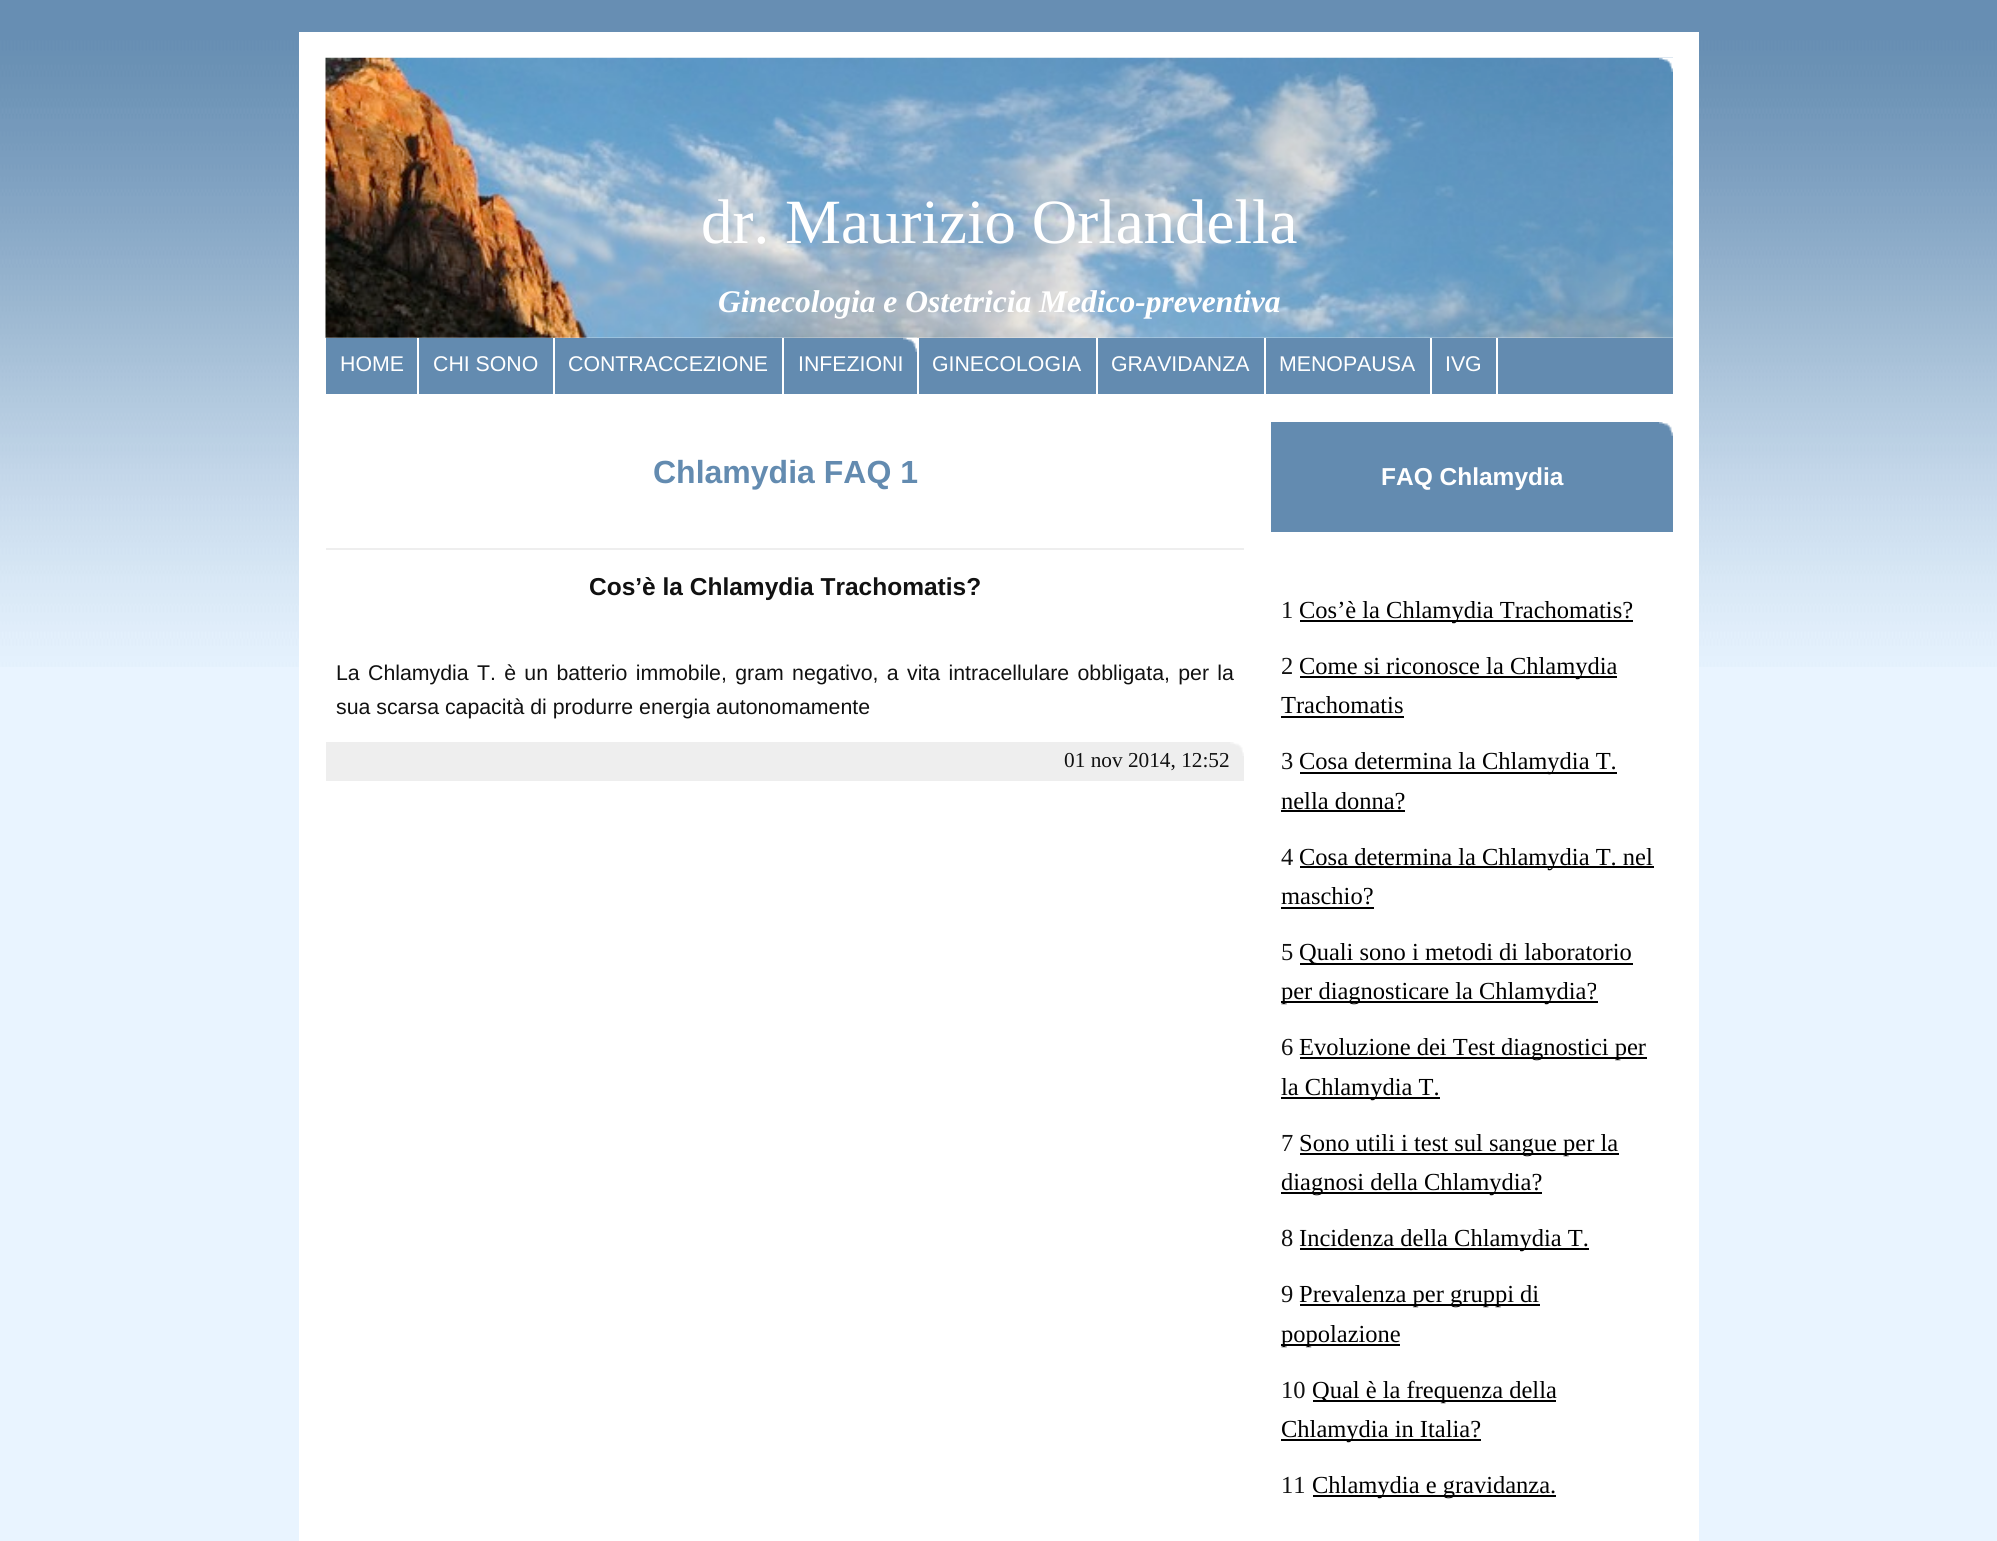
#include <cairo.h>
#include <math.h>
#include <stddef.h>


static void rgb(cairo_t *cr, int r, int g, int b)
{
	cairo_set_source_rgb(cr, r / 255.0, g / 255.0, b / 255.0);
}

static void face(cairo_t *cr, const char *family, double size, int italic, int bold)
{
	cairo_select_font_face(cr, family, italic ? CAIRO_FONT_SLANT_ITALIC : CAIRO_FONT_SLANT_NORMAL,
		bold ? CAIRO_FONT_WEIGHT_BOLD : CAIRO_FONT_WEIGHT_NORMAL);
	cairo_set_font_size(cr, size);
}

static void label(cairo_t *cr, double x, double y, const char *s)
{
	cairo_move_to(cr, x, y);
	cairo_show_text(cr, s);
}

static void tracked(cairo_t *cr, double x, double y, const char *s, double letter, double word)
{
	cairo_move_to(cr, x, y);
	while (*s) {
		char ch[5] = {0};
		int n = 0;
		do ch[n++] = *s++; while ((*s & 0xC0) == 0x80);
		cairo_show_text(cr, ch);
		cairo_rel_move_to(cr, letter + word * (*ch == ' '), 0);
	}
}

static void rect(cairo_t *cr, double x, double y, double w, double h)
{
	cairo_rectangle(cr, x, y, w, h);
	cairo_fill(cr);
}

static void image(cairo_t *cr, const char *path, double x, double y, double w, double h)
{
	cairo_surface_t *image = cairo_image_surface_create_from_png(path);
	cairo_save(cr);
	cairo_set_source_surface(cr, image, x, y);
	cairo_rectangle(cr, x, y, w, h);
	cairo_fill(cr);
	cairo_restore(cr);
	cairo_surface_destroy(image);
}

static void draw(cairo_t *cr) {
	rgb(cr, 233, 244, 255);
	cairo_paint(cr);
	image(cr, "image0.png", 0, 0, 1997, 667);
	rgb(cr, 255, 255, 255);
	rect(cr, 299, 32, 1400, 1509);
	image(cr, "image1.png", 325, 57, 1348, 281);
	image(cr, "image2.png", 1659, 57, 14, 15);
	face(cr, "Liberation Serif", 63, 0, 0);
	label(cr, 701, 243, "dr. Maurizio Orlandella");
	face(cr, "Liberation Serif", 31.5, 1, 1);
	label(cr, 718, 312, "Ginecologia e Ostetricia Medico-preventiva");
	rgb(cr, 99, 139, 176);
	rect(cr, 326, 338, 1347, 56);
	rgb(cr, 255, 255, 255);
	rect(cr, 417, 338, 2, 56);
	face(cr, "Liberation Sans", 21.3, 0, 0);
	label(cr, 340, 371, "HOME");
	rect(cr, 553, 338, 2, 56);
	label(cr, 433, 371, "CHI SONO");
	rect(cr, 782, 338, 2, 56);
	label(cr, 568, 371, "CONTRACCEZIONE");
	image(cr, "image3.png", 903, 337, 14, 15);
	rect(cr, 917, 338, 2, 56);
	label(cr, 798, 371, "INFEZIONI");
	rect(cr, 1096, 338, 2, 56);
	label(cr, 932, 371, "GINECOLOGIA");
	rect(cr, 1264, 338, 2, 56);
	label(cr, 1111, 371, "GRAVIDANZA");
	rect(cr, 1430, 338, 2, 56);
	label(cr, 1279, 371, "MENOPAUSA");
	rect(cr, 1496, 338, 2, 56);
	label(cr, 1445, 371, "IVG");
	rgb(cr, 238, 238, 238);
	rect(cr, 326, 548, 918, 2);
	face(cr, "Liberation Sans", 32, 0, 1);
	rgb(cr, 99, 139, 176);
	label(cr, 653, 483, "Chlamydia FAQ 1");
	face(cr, "Liberation Sans", 24.5, 0, 1);
	rgb(cr, 17, 17, 17);
	label(cr, 589, 595, "Cos’è la Chlamydia Trachomatis?");
	face(cr, "Liberation Sans", 21.3, 0, 0);
	tracked(cr, 336, 680, "La Chlamydia T. è un batterio immobile, gram negativo, a vita intracellulare obbligata, per la", 0, 2.4);
	label(cr, 336, 714, "sua scarsa capacità di produrre energia autonomamente");
	rgb(cr, 238, 238, 238);
	rect(cr, 326, 742, 918, 39);
	image(cr, "image4.png", 1230, 742, 14, 14);
	face(cr, "Liberation Serif", 21.3, 0, 0);
	rgb(cr, 17, 17, 17);
	label(cr, 1064, 767, "01 nov 2014, 12:52");
	rgb(cr, 99, 139, 176);
	rect(cr, 1271, 422, 402, 110);
	image(cr, "image5.png", 1659, 422, 14, 14);
	face(cr, "Liberation Sans", 24.5, 0, 1);
	rgb(cr, 255, 255, 255);
	label(cr, 1381, 485, "FAQ Chlamydia");
	face(cr, "Liberation Serif", 24.5, 0, 0);
	rgb(cr, 17, 17, 17);
	label(cr, 1281, 618, "1");
	rgb(cr, 0, 0, 0);
	rect(cr, 1300, 620, 333, 2);
	label(cr, 1299, 618, "Cos’è la Chlamydia Trachomatis?");
	rgb(cr, 17, 17, 17);
	label(cr, 1281, 674, "2");
	rgb(cr, 0, 0, 0);
	rect(cr, 1300, 676, 317, 2);
	label(cr, 1299, 674, "Come si riconosce la Chlamydia");
	label(cr, 1281, 713, "Trachomatis");
	rect(cr, 1281, 716, 123, 2);
	rgb(cr, 17, 17, 17);
	label(cr, 1281, 769, "3");
	rgb(cr, 0, 0, 0);
	rect(cr, 1300, 772, 317, 2);
	label(cr, 1299, 769, "Cosa determina la Chlamydia T.");
	label(cr, 1281, 809, "nella donna?");
	rect(cr, 1281, 810, 124, 2);
	rgb(cr, 17, 17, 17);
	label(cr, 1281, 865, "4");
	rgb(cr, 0, 0, 0);
	rect(cr, 1300, 866, 354, 2);
	label(cr, 1299, 865, "Cosa determina la Chlamydia T. nel");
	label(cr, 1281, 904, "maschio?");
	rect(cr, 1281, 907, 93, 2);
	rgb(cr, 17, 17, 17);
	label(cr, 1281, 960, "5");
	rgb(cr, 0, 0, 0);
	rect(cr, 1300, 963, 333, 2);
	label(cr, 1299, 960, "Quali sono i metodi di laboratorio");
	rect(cr, 1281, 1001, 317, 2);
	label(cr, 1281, 999, "per diagnosticare la Chlamydia?");
	rgb(cr, 17, 17, 17);
	label(cr, 1281, 1055, "6");
	rgb(cr, 0, 0, 0);
	rect(cr, 1300, 1057, 347, 2);
	label(cr, 1299, 1055, "Evoluzione dei Test diagnostici per");
	rect(cr, 1281, 1097, 159, 2);
	label(cr, 1281, 1095, "la Chlamydia T.");
	rgb(cr, 17, 17, 17);
	label(cr, 1281, 1151, "7");
	rgb(cr, 0, 0, 0);
	rect(cr, 1300, 1153, 319, 2);
	label(cr, 1299, 1151, "Sono utili i test sul sangue per la");
	rect(cr, 1281, 1192, 261, 2);
	label(cr, 1281, 1190, "diagnosi della Chlamydia?");
	rgb(cr, 17, 17, 17);
	label(cr, 1281, 1246, "8");
	rgb(cr, 0, 0, 0);
	rect(cr, 1300, 1248, 289, 2);
	label(cr, 1299, 1246, "Incidenza della Chlamydia T.");
	rgb(cr, 17, 17, 17);
	label(cr, 1281, 1302, "9");
	rgb(cr, 0, 0, 0);
	rect(cr, 1300, 1304, 240, 2);
	label(cr, 1299, 1302, "Prevalenza per gruppi di");
	rect(cr, 1281, 1344, 119, 2);
	label(cr, 1281, 1342, "popolazione");
	rgb(cr, 17, 17, 17);
	label(cr, 1281, 1398, "10");
	rgb(cr, 0, 0, 0);
	rect(cr, 1313, 1400, 243, 2);
	label(cr, 1312, 1398, "Qual è la frequenza della");
	rect(cr, 1281, 1439, 200, 2);
	label(cr, 1281, 1437, "Chlamydia in Italia?");
	rgb(cr, 17, 17, 17);
	label(cr, 1281, 1493, "11");
	rgb(cr, 0, 0, 0);
	rect(cr, 1313, 1495, 243, 2);
	label(cr, 1312, 1493, "Chlamydia e gravidanza.");
}

int main(void) {
	cairo_surface_t *surface = cairo_image_surface_create(CAIRO_FORMAT_RGB24, 1997, 1541);
	cairo_t *cr = cairo_create(surface);
	cairo_font_options_t *options = cairo_font_options_create();
	cairo_font_options_set_hint_metrics(options, CAIRO_HINT_METRICS_OFF);
	cairo_font_options_set_hint_style(options, CAIRO_HINT_STYLE_NONE);
	cairo_set_font_options(cr, options);
	cairo_set_miter_limit(cr, 4);
	draw(cr);
	cairo_surface_write_to_png(surface, "render.png");
	cairo_font_options_destroy(options);
	cairo_destroy(cr);
	cairo_surface_destroy(surface);
	return 0;
}
